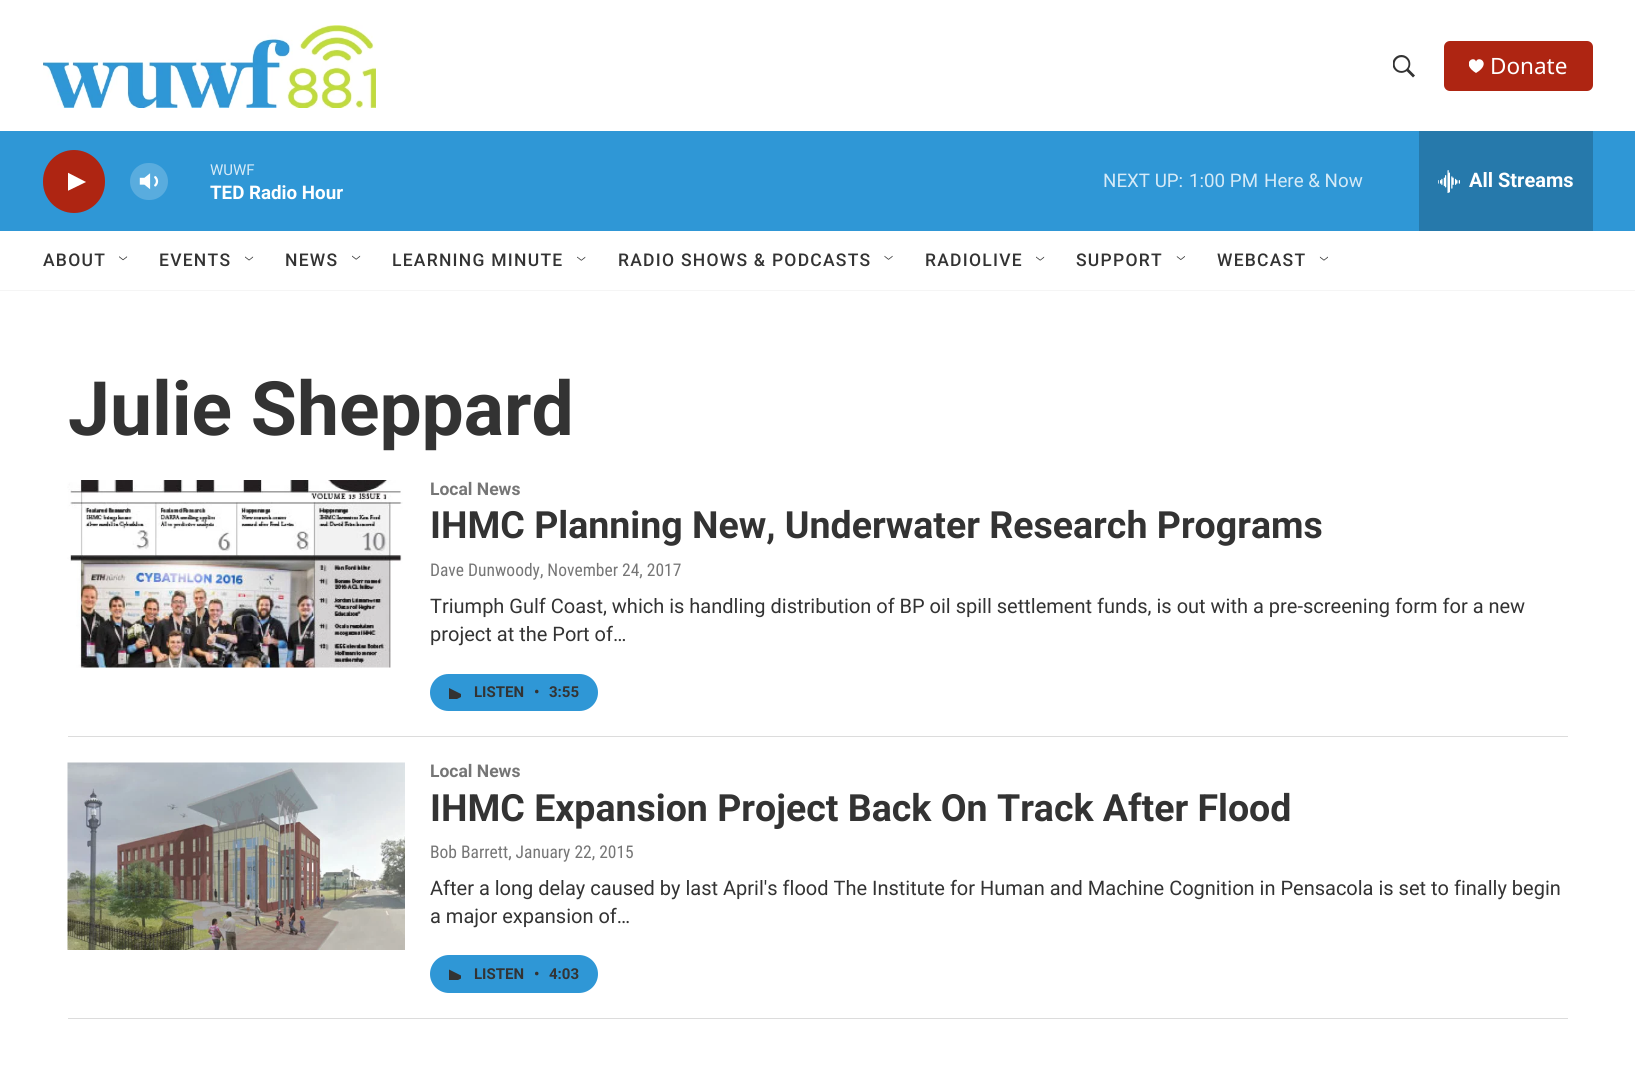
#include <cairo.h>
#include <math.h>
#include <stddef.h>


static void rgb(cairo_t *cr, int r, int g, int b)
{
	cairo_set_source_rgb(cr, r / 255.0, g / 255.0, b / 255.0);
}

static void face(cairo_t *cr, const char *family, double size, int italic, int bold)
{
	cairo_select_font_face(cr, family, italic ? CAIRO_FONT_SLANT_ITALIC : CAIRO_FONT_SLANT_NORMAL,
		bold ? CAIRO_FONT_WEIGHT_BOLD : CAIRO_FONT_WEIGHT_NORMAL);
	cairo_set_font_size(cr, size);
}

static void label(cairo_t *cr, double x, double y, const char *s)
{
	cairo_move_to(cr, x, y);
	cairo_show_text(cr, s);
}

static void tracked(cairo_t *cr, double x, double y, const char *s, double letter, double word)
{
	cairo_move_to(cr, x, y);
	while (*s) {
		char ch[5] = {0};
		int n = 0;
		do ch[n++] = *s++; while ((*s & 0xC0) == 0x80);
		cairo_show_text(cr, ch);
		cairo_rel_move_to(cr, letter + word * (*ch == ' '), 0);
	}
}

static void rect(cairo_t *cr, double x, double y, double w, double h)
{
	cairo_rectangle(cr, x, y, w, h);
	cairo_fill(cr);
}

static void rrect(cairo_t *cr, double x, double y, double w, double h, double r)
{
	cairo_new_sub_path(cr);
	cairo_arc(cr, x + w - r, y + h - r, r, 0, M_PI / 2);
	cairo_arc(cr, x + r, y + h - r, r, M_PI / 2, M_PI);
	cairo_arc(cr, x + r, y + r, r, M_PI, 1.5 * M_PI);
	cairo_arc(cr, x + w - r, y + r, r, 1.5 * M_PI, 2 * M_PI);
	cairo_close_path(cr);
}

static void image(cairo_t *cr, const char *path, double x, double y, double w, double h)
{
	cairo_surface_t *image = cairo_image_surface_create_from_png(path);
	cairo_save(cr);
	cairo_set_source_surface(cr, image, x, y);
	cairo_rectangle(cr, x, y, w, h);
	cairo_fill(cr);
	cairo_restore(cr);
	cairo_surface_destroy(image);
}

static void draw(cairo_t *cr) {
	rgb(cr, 255, 255, 255);
	cairo_paint(cr);
	rgb(cr, 245, 245, 245);
	rect(cr, 0, 290, 1635, 1);
	image(cr, "image0.png", 43, 25, 333, 83);
	image(cr, "image1.png", 1393, 55, 22, 23);
	rgb(cr, 174, 37, 18);
	rrect(cr, 1444, 41, 149, 50, 6);
	cairo_fill(cr);
	cairo_save(cr);
	cairo_rectangle(cr, 1469, 59, 15, 15);
	cairo_clip(cr);
	rgb(cr, 255, 255, 255);
	cairo_new_path(cr);
	cairo_move_to(cr, 1476, 61.5);
	cairo_curve_to(cr, 1474, 55, 1460.5, 63.5, 1476, 73);
	cairo_curve_to(cr, 1492, 63.5, 1478.5, 55, 1476, 61.5);
	cairo_close_path(cr);
	cairo_fill(cr);
	cairo_restore(cr);
	face(cr, "Noto Sans", 22.5, 0, 0);
	rgb(cr, 255, 255, 255);
	label(cr, 1490, 74, "Donate");
	rgb(cr, 47, 151, 214);
	rect(cr, 0, 131, 1635, 100);
	rgb(cr, 174, 37, 18);
	rrect(cr, 43, 150, 62, 63, 31);
	cairo_fill(cr);
	cairo_save(cr);
	cairo_rectangle(cr, 68, 170, 18, 24);
	cairo_clip(cr);
	rgb(cr, 255, 255, 255);
	cairo_new_path(cr);
	cairo_move_to(cr, 67.5, 172.5);
	cairo_line_to(cr, 86, 182);
	cairo_line_to(cr, 67.5, 191);
	cairo_close_path(cr);
	cairo_fill(cr);
	cairo_restore(cr);
	image(cr, "image2.png", 139, 173, 20, 17);
	cairo_set_source_rgba(cr, 1, 1, 1, 0.2);
	rrect(cr, 130, 163, 38, 37, 18.5);
	cairo_fill(cr);
	face(cr, "Roboto", 15, 0, 0);
	rgb(cr, 213, 234, 247);
	label(cr, 210, 175, "WUWF");
	face(cr, "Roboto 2", 18.75, 0, 1);
	rgb(cr, 255, 255, 255);
	label(cr, 210, 199, "TED Radio Hour");
	face(cr, "Roboto", 18.75, 0, 0);
	rgb(cr, 213, 234, 247);
	label(cr, 1103, 187, "NEXT UP:");
	label(cr, 1189, 187, "1:00 PM");
	label(cr, 1264, 187, "Here & Now");
	rgb(cr, 38, 121, 171);
	rect(cr, 1419, 131, 174, 100);
	image(cr, "image3.png", 1438, 170, 22, 23);
	face(cr, "Roboto 2", 20, 0, 1);
	rgb(cr, 255, 255, 255);
	label(cr, 1469, 187, "All Streams");
	face(cr, "Roboto Medium", 17.5, 0, 0);
	rgb(cr, 51, 51, 51);
	tracked(cr, 43, 266, "ABOUT", 1.25, 0);
	image(cr, "image4.png", 119, 256, 9, 5);
	tracked(cr, 159, 266, "EVENTS", 1.25, 0);
	image(cr, "image5.png", 245, 256, 9, 5);
	tracked(cr, 285, 266, "NEWS", 1.25, 0);
	image(cr, "image6.png", 352, 255, 9, 5);
	tracked(cr, 392, 266, "LEARNING MINUTE", 1.25, 0);
	image(cr, "image7.png", 577, 256, 9, 5);
	tracked(cr, 618, 266, "RADIO SHOWS & PODCASTS", 1.25, 0);
	image(cr, "image8.png", 884, 255, 9, 5);
	tracked(cr, 925, 266, "RADIOLIVE", 1.25, 0);
	image(cr, "image9.png", 1036, 256, 9, 5);
	tracked(cr, 1076, 266, "SUPPORT", 1.25, 0);
	image(cr, "image10.png", 1176, 256, 9, 4);
	tracked(cr, 1217, 266, "WEBCAST", 1.25, 0);
	image(cr, "image11.png", 1319, 256, 9, 5);
	face(cr, "Roboto", 75, 0, 1);
	label(cr, 68, 435, "Julie Sheppard");
	rgb(cr, 220, 220, 220);
	rect(cr, 68, 736, 1500, 1);
	image(cr, "image12.png", 67, 480, 336, 188);
	face(cr, "Roboto", 17.5, 0, 1);
	rgb(cr, 118, 118, 118);
	label(cr, 430, 495, "Local News");
	face(cr, "Roboto", 37.5, 0, 1);
	rgb(cr, 51, 51, 51);
	label(cr, 430, 538, "IHMC Planning New, Underwater Research Programs");
	face(cr, "Roboto Condensed", 17.5, 0, 0);
	rgb(cr, 118, 118, 118);
	label(cr, 430, 576, "Dave Dunwoody, November 24, 2017");
	face(cr, "Roboto", 20, 0, 0);
	rgb(cr, 51, 51, 51);
	label(cr, 430, 613, "Triumph Gulf Coast, which is handling distribution of BP oil spill settlement funds, is out with a pre-screening form for a new");
	label(cr, 430, 641, "project at the Port of…");
	rgb(cr, 47, 151, 214);
	rrect(cr, 430, 674, 168, 37, 18.5);
	cairo_fill(cr);
	cairo_save(cr);
	cairo_rectangle(cr, 449, 686, 12, 13);
	cairo_clip(cr);
	rgb(cr, 51, 51, 51);
	cairo_new_path(cr);
	cairo_move_to(cr, 449, 688);
	cairo_line_to(cr, 464, 695.5);
	cairo_line_to(cr, 449, 703);
	cairo_close_path(cr);
	cairo_fill(cr);
	cairo_restore(cr);
	face(cr, "Roboto 2", 15, 0, 1);
	rgb(cr, 51, 51, 51);
	label(cr, 474, 697, "LISTEN");
	label(cr, 534, 697, "•");
	label(cr, 549, 697, "3:55");
	rgb(cr, 220, 220, 220);
	rect(cr, 68, 1018, 1500, 1);
	image(cr, "image13.png", 67, 762, 338, 188);
	face(cr, "Roboto", 17.5, 0, 1);
	rgb(cr, 118, 118, 118);
	label(cr, 430, 777, "Local News");
	face(cr, "Roboto", 37.5, 0, 1);
	rgb(cr, 51, 51, 51);
	label(cr, 430, 821, "IHMC Expansion Project Back On Track After Flood");
	face(cr, "Roboto Condensed", 17.5, 0, 0);
	rgb(cr, 118, 118, 118);
	label(cr, 430, 858, "Bob Barrett, January 22, 2015");
	face(cr, "Roboto", 20, 0, 0);
	rgb(cr, 51, 51, 51);
	label(cr, 430, 895, "After a long delay caused by last April's flood The Institute for Human and Machine Cognition in Pensacola is set to finally begin");
	label(cr, 430, 923, "a major expansion of…");
	rgb(cr, 47, 151, 214);
	rrect(cr, 430, 955, 168, 38, 19);
	cairo_fill(cr);
	cairo_save(cr);
	cairo_rectangle(cr, 449, 968, 12, 12);
	cairo_clip(cr);
	rgb(cr, 51, 51, 51);
	cairo_new_path(cr);
	cairo_move_to(cr, 449, 969.5);
	cairo_line_to(cr, 464, 977);
	cairo_line_to(cr, 449, 984.5);
	cairo_close_path(cr);
	cairo_fill(cr);
	cairo_restore(cr);
	face(cr, "Roboto 2", 15, 0, 1);
	rgb(cr, 51, 51, 51);
	label(cr, 474, 979, "LISTEN");
	label(cr, 534, 979, "•");
	label(cr, 549, 979, "4:03");
}

int main(void) {
	cairo_surface_t *surface = cairo_image_surface_create(CAIRO_FORMAT_RGB24, 1635, 1066);
	cairo_t *cr = cairo_create(surface);
	cairo_font_options_t *options = cairo_font_options_create();
	cairo_font_options_set_hint_metrics(options, CAIRO_HINT_METRICS_OFF);
	cairo_font_options_set_hint_style(options, CAIRO_HINT_STYLE_NONE);
	cairo_set_font_options(cr, options);
	cairo_set_miter_limit(cr, 4);
	draw(cr);
	cairo_surface_write_to_png(surface, "render.png");
	cairo_font_options_destroy(options);
	cairo_destroy(cr);
	cairo_surface_destroy(surface);
	return 0;
}
